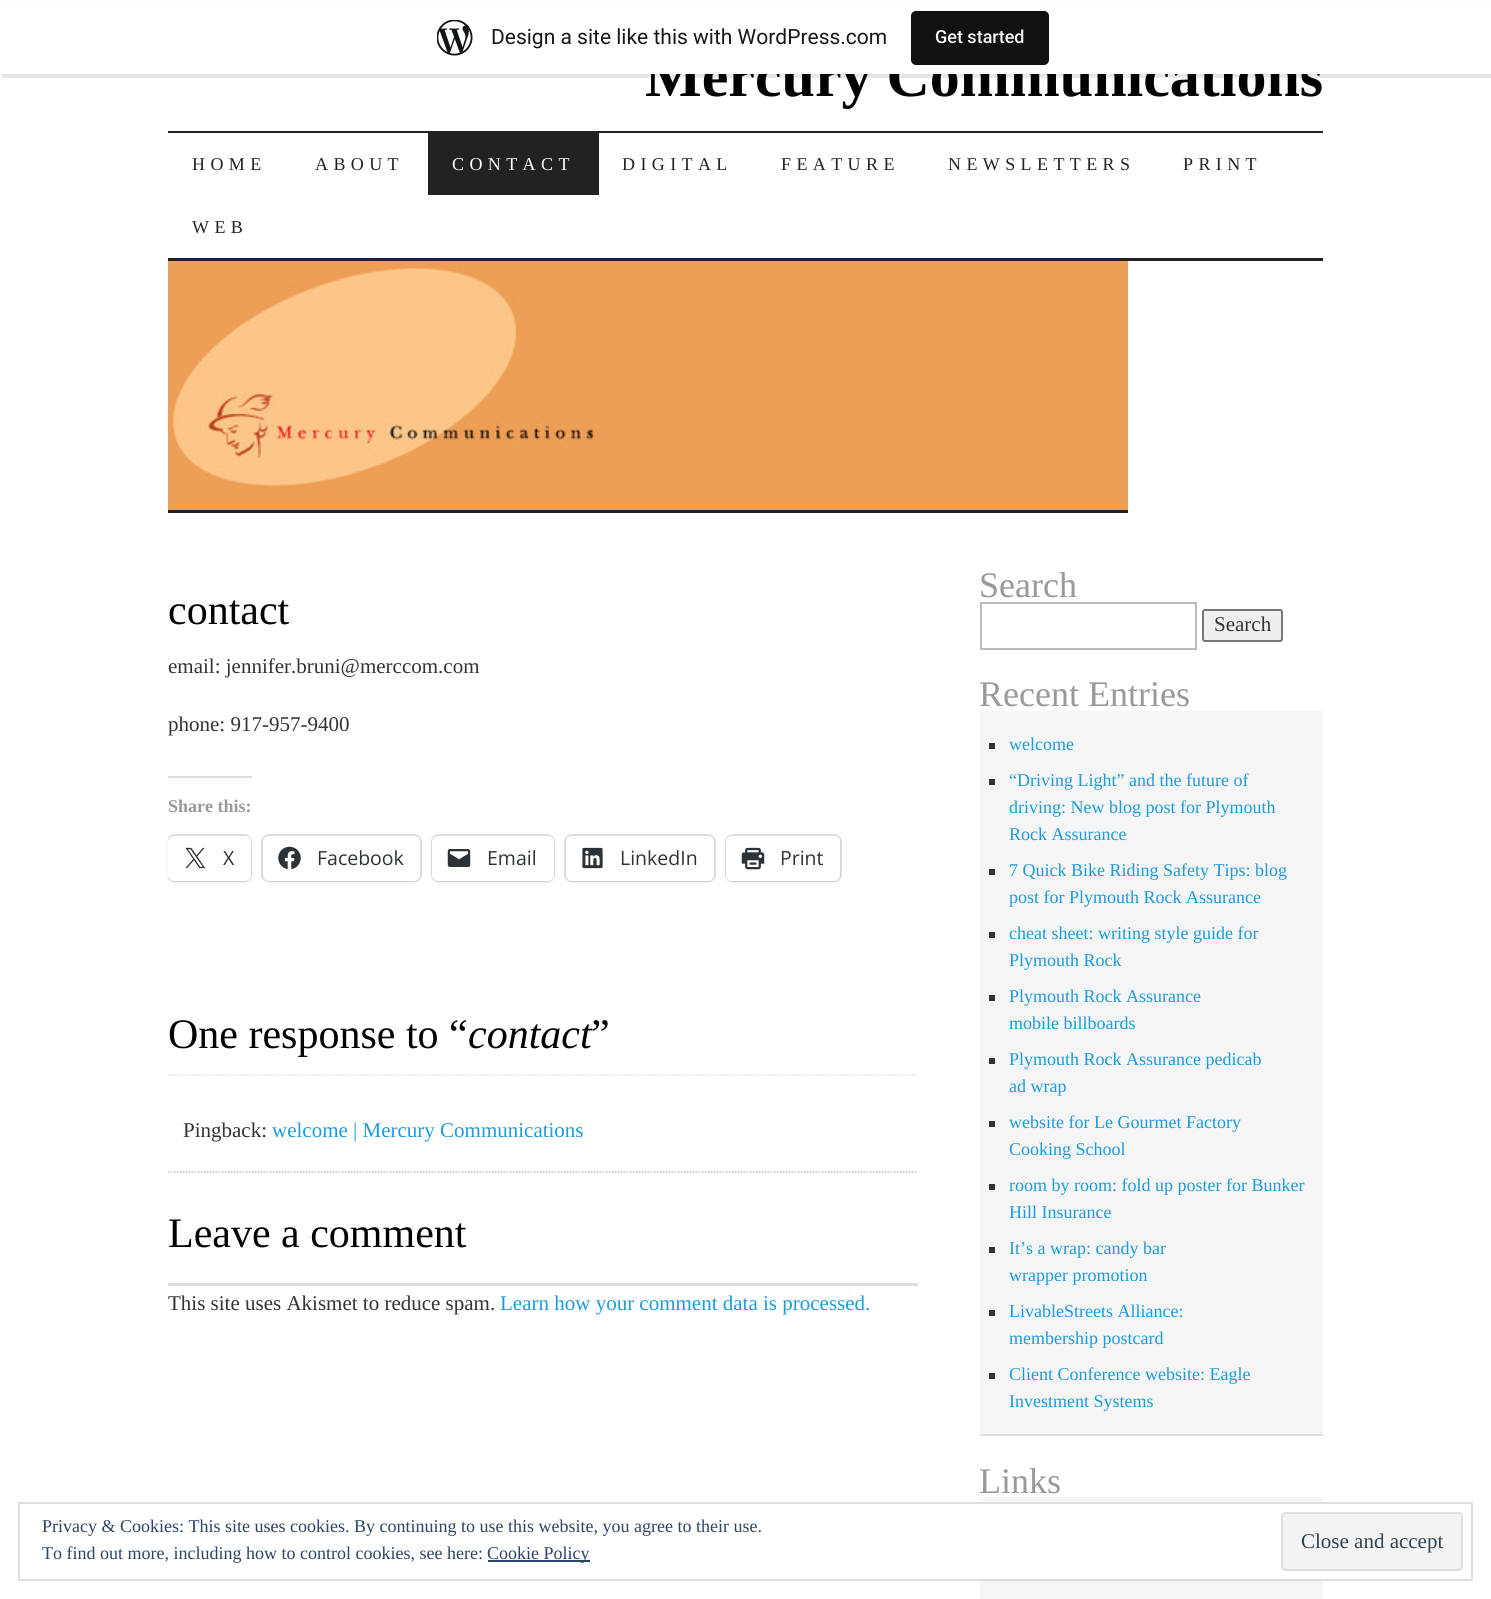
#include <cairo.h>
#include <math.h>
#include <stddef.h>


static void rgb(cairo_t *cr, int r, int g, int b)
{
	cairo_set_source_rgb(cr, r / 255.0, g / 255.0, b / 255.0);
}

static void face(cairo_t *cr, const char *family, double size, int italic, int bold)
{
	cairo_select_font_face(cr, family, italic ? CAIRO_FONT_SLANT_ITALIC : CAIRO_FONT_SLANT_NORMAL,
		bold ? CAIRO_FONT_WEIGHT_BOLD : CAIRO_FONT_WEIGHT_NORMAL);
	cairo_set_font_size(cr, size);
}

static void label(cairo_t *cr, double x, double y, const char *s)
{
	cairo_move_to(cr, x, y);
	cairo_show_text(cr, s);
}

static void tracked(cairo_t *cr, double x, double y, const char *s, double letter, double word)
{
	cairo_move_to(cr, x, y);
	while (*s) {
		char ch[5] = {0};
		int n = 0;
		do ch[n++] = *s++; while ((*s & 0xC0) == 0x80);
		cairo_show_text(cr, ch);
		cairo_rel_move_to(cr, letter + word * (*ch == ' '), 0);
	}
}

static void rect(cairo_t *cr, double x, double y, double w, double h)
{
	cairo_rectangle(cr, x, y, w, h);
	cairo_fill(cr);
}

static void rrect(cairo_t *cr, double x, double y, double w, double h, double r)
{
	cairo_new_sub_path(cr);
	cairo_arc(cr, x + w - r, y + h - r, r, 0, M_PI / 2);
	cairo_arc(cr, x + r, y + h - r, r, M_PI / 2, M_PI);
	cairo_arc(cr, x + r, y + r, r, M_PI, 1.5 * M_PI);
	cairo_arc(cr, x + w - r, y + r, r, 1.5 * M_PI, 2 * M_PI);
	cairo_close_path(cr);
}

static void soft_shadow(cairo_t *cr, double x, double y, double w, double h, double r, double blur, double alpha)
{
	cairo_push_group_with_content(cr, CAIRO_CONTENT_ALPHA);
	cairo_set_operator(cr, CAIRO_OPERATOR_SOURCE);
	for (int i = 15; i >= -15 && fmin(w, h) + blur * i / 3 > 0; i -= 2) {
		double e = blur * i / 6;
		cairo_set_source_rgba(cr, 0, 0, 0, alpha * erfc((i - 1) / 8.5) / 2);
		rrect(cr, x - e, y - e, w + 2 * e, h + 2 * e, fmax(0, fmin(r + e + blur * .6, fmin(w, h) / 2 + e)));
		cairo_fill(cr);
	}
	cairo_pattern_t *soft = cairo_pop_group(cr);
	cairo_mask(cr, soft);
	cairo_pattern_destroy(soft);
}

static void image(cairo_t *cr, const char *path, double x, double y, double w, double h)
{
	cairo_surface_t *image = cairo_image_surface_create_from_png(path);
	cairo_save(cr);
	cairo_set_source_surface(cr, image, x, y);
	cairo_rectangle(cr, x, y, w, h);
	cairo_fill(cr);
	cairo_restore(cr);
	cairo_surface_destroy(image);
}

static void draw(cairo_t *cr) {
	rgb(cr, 255, 255, 255);
	cairo_paint(cr);
	rgb(cr, 0, 0, 0);
	soft_shadow(cr, 0, 2, 1491, 73, 0, 1.5, 0.05);
	cairo_set_source_rgba(cr, 0, 0, 0, 0.08);
	cairo_new_path(cr);
	cairo_move_to(cr, 2, 74);
	cairo_line_to(cr, 2, 78);
	cairo_line_to(cr, 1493, 78);
	cairo_line_to(cr, 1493, 5);
	cairo_line_to(cr, 1491, 5);
	cairo_line_to(cr, 1491, 74);
	cairo_close_path(cr);
	cairo_fill(cr);
	face(cr, "Liberation Serif", 60, 0, 1);
	rgb(cr, 0, 0, 0);
	label(cr, 645, 96, "Mercury Communications");
	rgb(cr, 255, 255, 255);
	rect(cr, 0, 1, 1491, 73);
	image(cr, "image0.png", 437, 20, 36, 36);
	face(cr, "Roboto", 21, 0, 0);
	rgb(cr, 23, 23, 23);
	label(cr, 491, 44, "Design a site like this with WordPress.com");
	rgb(cr, 17, 17, 17);
	rrect(cr, 911, 11, 138, 54, 5);
	cairo_fill(cr);
	face(cr, "Roboto Medium", 18, 0, 0);
	rgb(cr, 246, 247, 247);
	label(cr, 935, 43, "Get started");
	rgb(cr, 34, 34, 34);
	rect(cr, 168, 131, 1155, 2);
	rect(cr, 168, 258, 1155, 3);
	face(cr, "Liberation Serif", 18, 0, 0);
	tracked(cr, 192, 170, "HOME", 5.4, 0);
	tracked(cr, 315, 170, "ABOUT", 5.4, 0);
	rect(cr, 428, 133, 171, 62);
	rgb(cr, 255, 255, 255);
	tracked(cr, 452, 170, "CONTACT", 5.4, 0);
	rgb(cr, 34, 34, 34);
	tracked(cr, 622, 170, "DIGITAL", 5.4, 0);
	tracked(cr, 781, 170, "FEATURE", 5.4, 0);
	tracked(cr, 948, 170, "NEWSLETTERS", 5.4, 0);
	tracked(cr, 1183, 170, "PRINT", 5.4, 0);
	tracked(cr, 192, 233, "WEB", 5.4, 0);
	image(cr, "image1.png", 168, 261, 960, 249);
	rect(cr, 168, 510, 960, 3);
	face(cr, "Liberation Serif", 42, 0, 0);
	rgb(cr, 0, 0, 0);
	label(cr, 168, 624, "contact");
	face(cr, "Liberation Serif", 21, 0, 0);
	rgb(cr, 51, 51, 51);
	label(cr, 168, 673, "email: jennifer.bruni@merccom.com");
	label(cr, 168, 731, "phone: 917-957-9400");
	rgb(cr, 220, 220, 222);
	rect(cr, 168, 776, 84, 2);
	face(cr, "Liberation Serif", 18, 0, 1);
	rgb(cr, 153, 153, 153);
	label(cr, 168, 812, "Share this:");
	cairo_save(cr);
	cairo_rectangle(cr, 168, 570, 750, 774);
	cairo_clip(cr);
	rrect(cr, 168, 835, 83, 46, 7);
	rgb(cr, 224, 224, 224);
	cairo_stroke(cr);
	cairo_restore(cr);
	rgb(cr, 0, 0, 0);
	soft_shadow(cr, 168, 837, 83, 45, 6, 1.5, 0.12);
	rgb(cr, 255, 255, 255);
	rrect(cr, 168, 836, 83, 45, 6);
	cairo_fill(cr);
	image(cr, "image2.png", 185, 847, 21, 22);
	face(cr, "Open Sans", 19.5, 0, 0);
	rgb(cr, 44, 51, 56);
	label(cr, 223, 865, "X");
	rrect(cr, 262, 835, 159, 46, 7);
	rgb(cr, 224, 224, 224);
	cairo_stroke(cr);
	rgb(cr, 0, 0, 0);
	soft_shadow(cr, 263, 837, 157, 45, 6, 1.5, 0.12);
	rgb(cr, 255, 255, 255);
	rrect(cr, 263, 836, 157, 45, 6);
	cairo_fill(cr);
	image(cr, "image3.png", 278, 846, 23, 24);
	rgb(cr, 44, 51, 56);
	label(cr, 317, 865, "Facebook");
	rrect(cr, 432, 835, 122, 46, 7);
	rgb(cr, 224, 224, 224);
	cairo_stroke(cr);
	rgb(cr, 0, 0, 0);
	soft_shadow(cr, 432, 837, 122, 45, 6, 1.5, 0.12);
	rgb(cr, 255, 255, 255);
	rrect(cr, 432, 836, 122, 45, 6);
	cairo_fill(cr);
	image(cr, "image4.png", 447, 849, 24, 18);
	rgb(cr, 44, 51, 56);
	label(cr, 487, 865, "Email");
	rrect(cr, 565, 835, 150, 46, 7);
	rgb(cr, 224, 224, 224);
	cairo_stroke(cr);
	rgb(cr, 0, 0, 0);
	soft_shadow(cr, 566, 837, 148, 45, 6, 1.5, 0.12);
	rgb(cr, 255, 255, 255);
	rrect(cr, 566, 836, 148, 45, 6);
	cairo_fill(cr);
	image(cr, "image5.png", 582, 847, 21, 22);
	rgb(cr, 44, 51, 56);
	label(cr, 620, 865, "LinkedIn");
	rrect(cr, 726, 835, 115, 46, 7);
	rgb(cr, 224, 224, 224);
	cairo_stroke(cr);
	rgb(cr, 0, 0, 0);
	soft_shadow(cr, 726, 837, 114, 45, 6, 1.5, 0.12);
	rgb(cr, 255, 255, 255);
	rrect(cr, 726, 836, 114, 45, 6);
	cairo_fill(cr);
	image(cr, "image6.png", 741, 847, 24, 23);
	rgb(cr, 44, 51, 56);
	label(cr, 780, 865, "Print");
	cairo_new_path(cr);
	cairo_move_to(cr, 168, 1075);
	cairo_line_to(cr, 918, 1075);
	rgb(cr, 221, 221, 221);
	cairo_set_line_width(cr, 1.5);
	cairo_set_dash(cr, (double[]){1.5, 1.5}, 2, 0);
	cairo_stroke(cr);
	face(cr, "Liberation Serif", 42, 0, 0);
	rgb(cr, 0, 0, 0);
	label(cr, 168, 1048, "One response to “");
	face(cr, "Liberation Serif", 42, 1, 0);
	label(cr, 468, 1048, "contact");
	face(cr, "Liberation Serif", 42, 0, 0);
	label(cr, 591, 1048, "”");
	cairo_new_path(cr);
	cairo_move_to(cr, 168, 1172);
	cairo_line_to(cr, 918, 1172);
	rgb(cr, 187, 187, 187);
	cairo_stroke(cr);
	face(cr, "Liberation Serif", 21, 0, 0);
	rgb(cr, 51, 51, 51);
	label(cr, 183, 1137, "Pingback:");
	rgb(cr, 28, 155, 220);
	label(cr, 272, 1137, "welcome | Mercury Communications");
	face(cr, "Liberation Serif", 42, 0, 0);
	rgb(cr, 0, 0, 0);
	label(cr, 168, 1247, "Leave a comment");
	rgb(cr, 220, 220, 222);
	rect(cr, 168, 1283, 750, 3);
	face(cr, "Liberation Serif", 21, 0, 0);
	rgb(cr, 51, 51, 51);
	label(cr, 168, 1310, "This site uses Akismet to reduce spam.");
	rgb(cr, 28, 155, 220);
	label(cr, 500, 1310, "Learn how your comment data is processed.");
	face(cr, "Liberation Serif", 36, 0, 0);
	rgb(cr, 153, 153, 153);
	label(cr, 979, 597, "Search");
	cairo_rectangle(cr, 981, 603, 215, 46);
	rgb(cr, 187, 187, 187);
	cairo_set_line_width(cr, 2);
	cairo_set_dash(cr, NULL, 0, 0);
	cairo_stroke(cr);
	rgb(cr, 239, 239, 239);
	rrect(cr, 1203, 610, 79, 31, 2);
	cairo_fill_preserve(cr);
	rgb(cr, 118, 118, 118);
	cairo_stroke(cr);
	face(cr, "Liberation Serif", 21, 0, 0);
	rgb(cr, 51, 51, 51);
	label(cr, 1214, 631, "Search");
	face(cr, "Liberation Serif", 36, 0, 0);
	rgb(cr, 153, 153, 153);
	label(cr, 979, 706, "Recent Entries");
	rgb(cr, 245, 245, 245);
	rect(cr, 980, 711, 343, 723);
	rgb(cr, 221, 221, 221);
	rect(cr, 980, 1434, 343, 2);
	rgb(cr, 51, 51, 51);
	rect(cr, 989, 743, 6, 6);
	face(cr, "Liberation Serif", 18, 0, 0);
	rgb(cr, 28, 155, 220);
	label(cr, 1009, 750, "welcome");
	rgb(cr, 51, 51, 51);
	rect(cr, 989, 779, 6, 6);
	rgb(cr, 28, 155, 220);
	label(cr, 1009, 786, "“Driving Light” and the future of");
	label(cr, 1009, 813, "driving: New blog post for Plymouth");
	label(cr, 1009, 840, "Rock Assurance");
	rgb(cr, 51, 51, 51);
	rect(cr, 989, 869, 6, 6);
	rgb(cr, 28, 155, 220);
	label(cr, 1009, 876, "7 Quick Bike Riding Safety Tips: blog");
	label(cr, 1009, 903, "post for Plymouth Rock Assurance");
	rgb(cr, 51, 51, 51);
	rect(cr, 989, 932, 6, 6);
	rgb(cr, 28, 155, 220);
	label(cr, 1009, 939, "cheat sheet: writing style guide for");
	label(cr, 1009, 966, "Plymouth Rock");
	rgb(cr, 51, 51, 51);
	rect(cr, 989, 995, 6, 6);
	rgb(cr, 28, 155, 220);
	label(cr, 1009, 1002, "Plymouth Rock Assurance");
	label(cr, 1009, 1029, "mobile billboards");
	rgb(cr, 51, 51, 51);
	rect(cr, 989, 1058, 6, 6);
	rgb(cr, 28, 155, 220);
	label(cr, 1009, 1065, "Plymouth Rock Assurance pedicab");
	label(cr, 1009, 1092, "ad wrap");
	rgb(cr, 51, 51, 51);
	rect(cr, 989, 1121, 6, 6);
	rgb(cr, 28, 155, 220);
	label(cr, 1009, 1128, "website for Le Gourmet Factory");
	label(cr, 1009, 1155, "Cooking School");
	rgb(cr, 51, 51, 51);
	rect(cr, 989, 1184, 6, 6);
	rgb(cr, 28, 155, 220);
	label(cr, 1009, 1191, "room by room: fold up poster for Bunker");
	label(cr, 1009, 1218, "Hill Insurance");
	rgb(cr, 51, 51, 51);
	rect(cr, 989, 1247, 6, 6);
	rgb(cr, 28, 155, 220);
	label(cr, 1009, 1254, "It’s a wrap: candy bar");
	label(cr, 1009, 1281, "wrapper promotion");
	rgb(cr, 51, 51, 51);
	rect(cr, 989, 1310, 6, 6);
	rgb(cr, 28, 155, 220);
	label(cr, 1009, 1317, "LivableStreets Alliance:");
	label(cr, 1009, 1344, "membership postcard");
	rgb(cr, 51, 51, 51);
	rect(cr, 989, 1373, 6, 6);
	rgb(cr, 28, 155, 220);
	label(cr, 1009, 1380, "Client Conference website: Eagle");
	label(cr, 1009, 1407, "Investment Systems");
	cairo_save(cr);
	cairo_rectangle(cr, 980, 570, 343, 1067);
	cairo_clip(cr);
	face(cr, "Liberation Serif", 36, 0, 0);
	rgb(cr, 153, 153, 153);
	label(cr, 979, 1493, "Links");
	cairo_restore(cr);
	rgb(cr, 245, 245, 245);
	rect(cr, 980, 1497, 343, 102);
	rgb(cr, 255, 255, 255);
	rect(cr, 980, 1504, 343, 75);
	cairo_rectangle(cr, 19, 1503, 1453, 77);
	rgb(cr, 222, 222, 222);
	cairo_stroke(cr);
	rgb(cr, 46, 68, 103);
	label(cr, 42, 1532, "Privacy & Cookies: This site uses cookies. By continuing to use this website, you agree to their use.");
	label(cr, 42, 1559, "To find out more, including how to control cookies, see here:");
	rect(cr, 488, 1560, 102, 2);
	label(cr, 487, 1559, "Cookie Policy");
	rgb(cr, 243, 243, 243);
	rrect(cr, 1282, 1513, 180, 57, 4);
	cairo_fill_preserve(cr);
	rgb(cr, 222, 222, 222);
	cairo_stroke(cr);
	face(cr, "Liberation Serif", 21, 0, 0);
	rgb(cr, 46, 68, 83);
	label(cr, 1301, 1548, "Close and accept");
}

int main(void) {
	cairo_surface_t *surface = cairo_image_surface_create(CAIRO_FORMAT_RGB24, 1491, 1599);
	cairo_t *cr = cairo_create(surface);
	cairo_font_options_t *options = cairo_font_options_create();
	cairo_font_options_set_hint_metrics(options, CAIRO_HINT_METRICS_OFF);
	cairo_font_options_set_hint_style(options, CAIRO_HINT_STYLE_NONE);
	cairo_set_font_options(cr, options);
	cairo_set_miter_limit(cr, 4);
	draw(cr);
	cairo_surface_write_to_png(surface, "render.png");
	cairo_font_options_destroy(options);
	cairo_destroy(cr);
	cairo_surface_destroy(surface);
	return 0;
}
